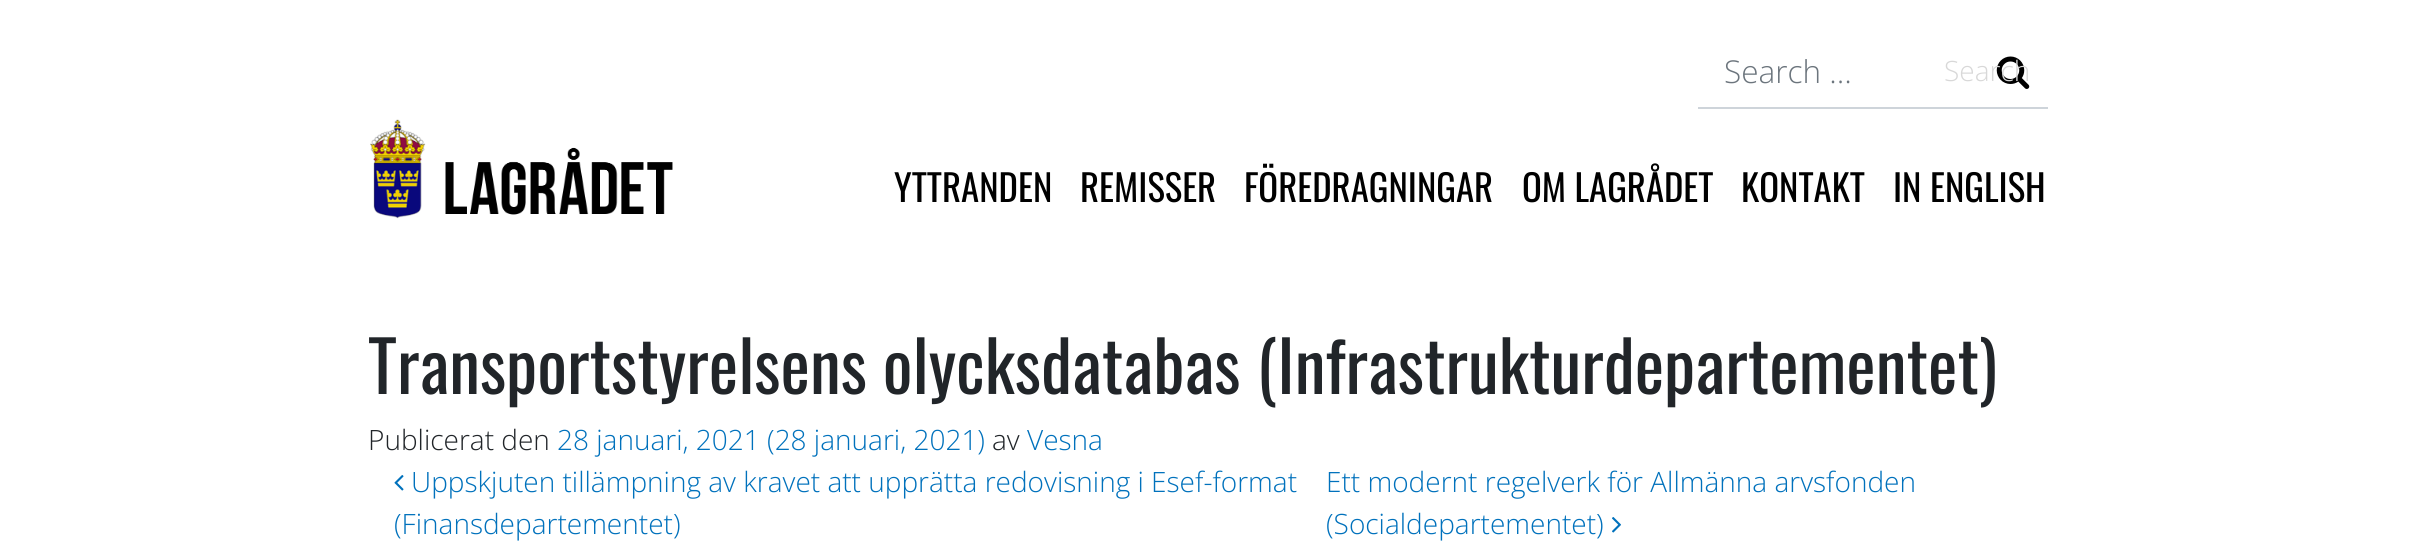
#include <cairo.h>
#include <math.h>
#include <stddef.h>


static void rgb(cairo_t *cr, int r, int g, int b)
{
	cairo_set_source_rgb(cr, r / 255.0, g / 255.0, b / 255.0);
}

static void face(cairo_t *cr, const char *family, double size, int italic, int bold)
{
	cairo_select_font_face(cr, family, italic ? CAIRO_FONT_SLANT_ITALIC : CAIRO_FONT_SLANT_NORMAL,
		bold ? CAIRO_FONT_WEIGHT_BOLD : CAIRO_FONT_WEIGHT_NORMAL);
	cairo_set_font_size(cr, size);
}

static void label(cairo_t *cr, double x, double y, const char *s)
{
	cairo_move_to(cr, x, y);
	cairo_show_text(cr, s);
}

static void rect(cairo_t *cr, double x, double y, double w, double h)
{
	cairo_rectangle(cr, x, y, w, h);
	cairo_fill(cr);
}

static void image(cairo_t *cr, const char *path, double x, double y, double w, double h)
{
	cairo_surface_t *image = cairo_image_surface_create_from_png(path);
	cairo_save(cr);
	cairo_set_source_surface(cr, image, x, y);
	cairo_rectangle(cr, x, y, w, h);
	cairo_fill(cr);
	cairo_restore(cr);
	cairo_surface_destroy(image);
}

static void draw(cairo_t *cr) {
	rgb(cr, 255, 255, 255);
	cairo_paint(cr);
	rgb(cr, 206, 212, 218);
	rect(cr, 1698, 107, 350, 2);
	face(cr, "Open Sans Light", 31.5, 0, 0);
	rgb(cr, 108, 117, 125);
	label(cr, 1724, 83, "Search …");
	image(cr, "image0.png", 1996, 56, 34, 33);
	face(cr, "Open Sans Light", 28, 0, 0);
	rgb(cr, 216, 216, 216);
	label(cr, 1944, 81, "Search");
	image(cr, "image1.png", 370, 119, 303, 100);
	face(cr, "Oswald", 36.75, 0, 0);
	rgb(cr, 0, 0, 0);
	label(cr, 894, 202, "YTTRANDEN");
	label(cr, 1080, 202, "REMISSER");
	label(cr, 1244, 202, "FÖREDRAGNINGAR");
	label(cr, 1522, 202, "OM LAGRÅDET");
	label(cr, 1741, 202, "KONTAKT");
	label(cr, 1893, 202, "IN ENGLISH");
	face(cr, "Oswald", 70, 0, 0);
	rgb(cr, 33, 37, 41);
	label(cr, 368, 394, "Transportstyrelsens olycksdatabas (Infrastrukturdepartementet)");
	face(cr, "Open Sans Light", 28, 0, 0);
	label(cr, 368, 450, "Publicerat den");
	rgb(cr, 0, 113, 188);
	label(cr, 557, 450, "28 januari, 2021 (28 januari, 2021)");
	rgb(cr, 33, 37, 41);
	label(cr, 992, 450, "av");
	rgb(cr, 0, 113, 188);
	label(cr, 1027, 450, "Vesna");
	image(cr, "image2.png", 394, 475, 10, 16);
	label(cr, 411, 492, "Uppskjuten tillämpning av kravet att upprätta redovisning i Esef-format");
	label(cr, 394, 534, "(Finansdepartementet)");
	label(cr, 1326, 492, "Ett modernt regelverk för Allmänna arvsfonden");
	label(cr, 1326, 534, "(Socialdepartementet)");
	image(cr, "image3.png", 1612, 517, 9, 16);
}

int main(void) {
	cairo_surface_t *surface = cairo_image_surface_create(CAIRO_FORMAT_RGB24, 2414, 552);
	cairo_t *cr = cairo_create(surface);
	cairo_font_options_t *options = cairo_font_options_create();
	cairo_font_options_set_hint_metrics(options, CAIRO_HINT_METRICS_OFF);
	cairo_font_options_set_hint_style(options, CAIRO_HINT_STYLE_NONE);
	cairo_set_font_options(cr, options);
	cairo_set_miter_limit(cr, 4);
	draw(cr);
	cairo_surface_write_to_png(surface, "render.png");
	cairo_font_options_destroy(options);
	cairo_destroy(cr);
	cairo_surface_destroy(surface);
	return 0;
}
